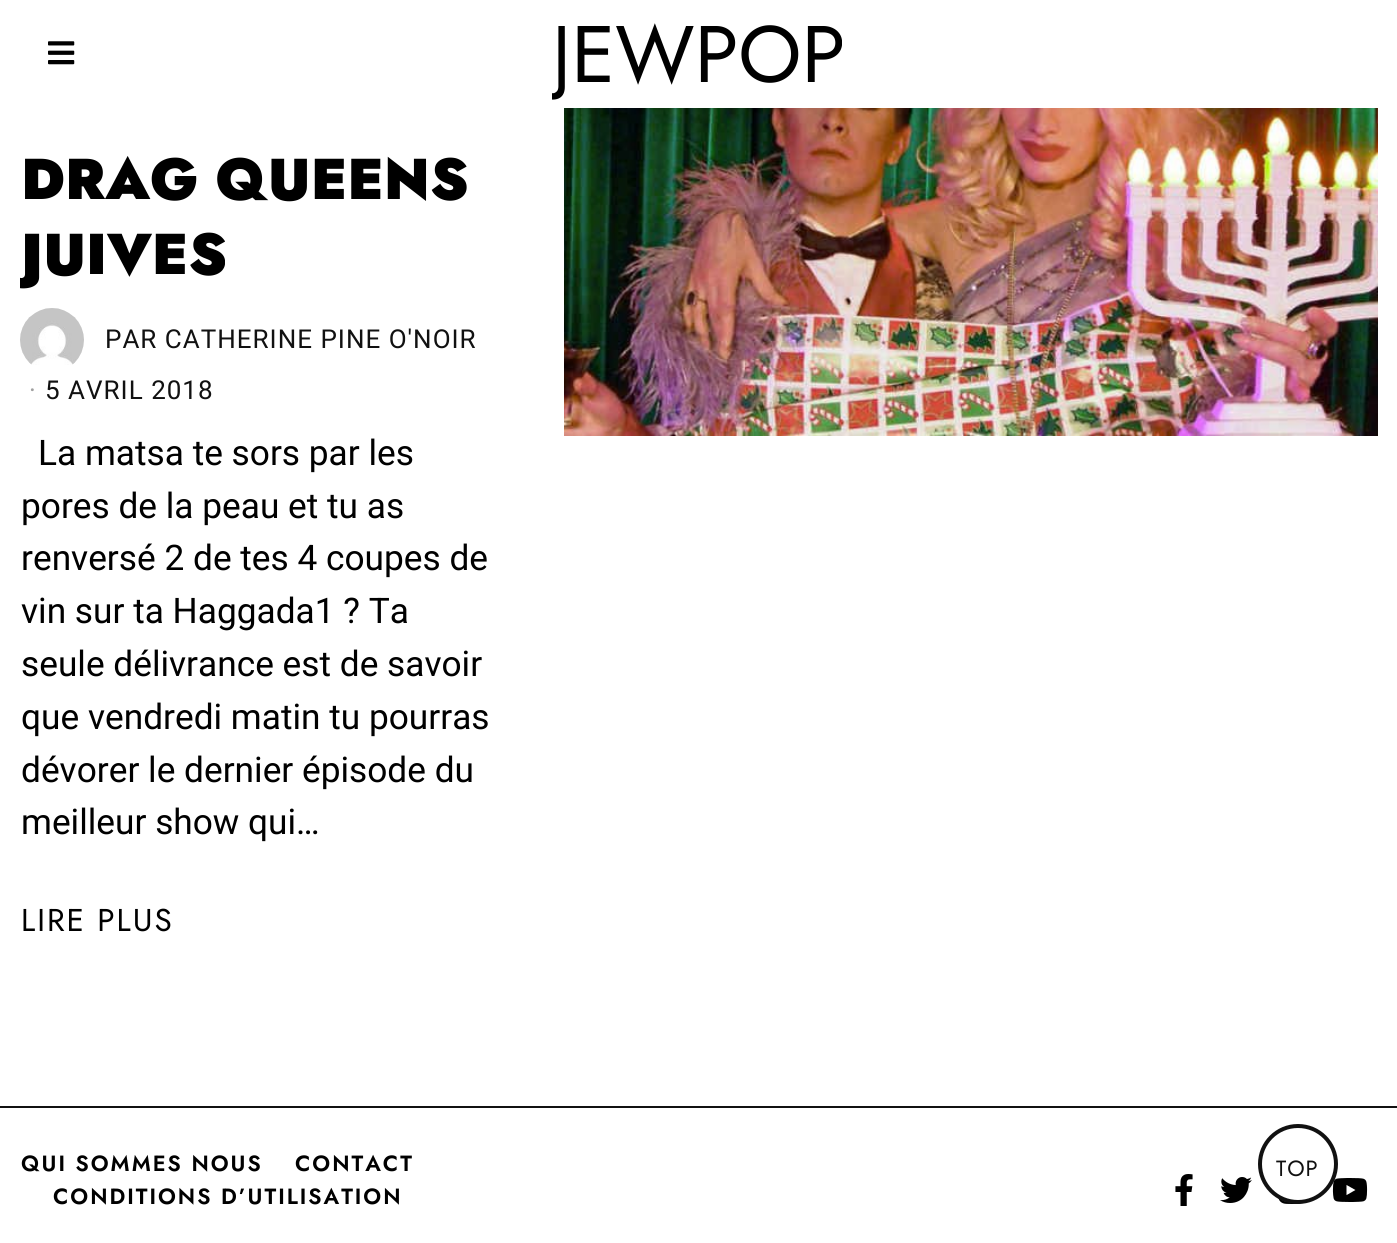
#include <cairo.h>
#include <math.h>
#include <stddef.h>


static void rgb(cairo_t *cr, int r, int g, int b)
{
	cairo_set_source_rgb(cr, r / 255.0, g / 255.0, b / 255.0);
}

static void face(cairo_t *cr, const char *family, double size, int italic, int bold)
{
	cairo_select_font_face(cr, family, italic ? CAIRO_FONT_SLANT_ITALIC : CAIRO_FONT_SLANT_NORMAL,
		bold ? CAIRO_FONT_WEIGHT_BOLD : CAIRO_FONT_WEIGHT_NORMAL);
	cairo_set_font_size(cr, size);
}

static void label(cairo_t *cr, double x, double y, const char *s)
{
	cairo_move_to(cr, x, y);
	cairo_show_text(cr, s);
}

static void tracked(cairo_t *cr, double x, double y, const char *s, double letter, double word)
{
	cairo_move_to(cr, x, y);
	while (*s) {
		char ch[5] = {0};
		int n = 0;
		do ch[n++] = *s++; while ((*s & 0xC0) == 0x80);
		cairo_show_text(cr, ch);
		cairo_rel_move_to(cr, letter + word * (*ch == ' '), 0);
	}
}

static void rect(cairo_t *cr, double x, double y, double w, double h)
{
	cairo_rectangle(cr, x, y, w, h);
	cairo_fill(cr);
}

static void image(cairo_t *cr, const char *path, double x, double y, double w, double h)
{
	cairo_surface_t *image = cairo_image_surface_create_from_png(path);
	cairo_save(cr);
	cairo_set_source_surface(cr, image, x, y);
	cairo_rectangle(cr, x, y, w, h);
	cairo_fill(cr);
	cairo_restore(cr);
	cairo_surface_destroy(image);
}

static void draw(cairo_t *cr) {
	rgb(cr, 255, 255, 255);
	cairo_paint(cr);
	image(cr, "image0.png", 48, 41, 27, 24);
	cairo_save(cr);
	cairo_rectangle(cr, 552, 0, 294, 108);
	cairo_clip(cr);
	face(cr, "Jost", 80, 0, 0);
	rgb(cr, 0, 0, 0);
	label(cr, 552, 82, "JEWPOP");
	cairo_restore(cr);
	face(cr, "Jost Black", 57.5, 0, 0);
	rgb(cr, 0, 0, 0);
	label(cr, 21, 199, "DRAG QUEENS");
	cairo_save(cr);
	cairo_rectangle(cr, 20, 0, 544, 946);
	cairo_clip(cr);
	label(cr, 21, 274, "JUIVES");
	cairo_restore(cr);
	image(cr, "image1.png", 20, 308, 64, 57);
	face(cr, "Roboto", 26, 0, 0);
	rgb(cr, 17, 17, 17);
	tracked(cr, 105, 348, "PAR CATHERINE PINE O'NOIR", 1, 0);
	rgb(cr, 160, 160, 160);
	tracked(cr, 29, 399, "·", 1, 0);
	rgb(cr, 17, 17, 17);
	tracked(cr, 45, 399, "5 AVRIL 2018", 1, 0);
	face(cr, "Roboto", 35.25, 0, 0);
	rgb(cr, 0, 0, 0);
	label(cr, 38, 465, "La matsa te sors par les");
	label(cr, 21, 518, "pores de la peau et tu as");
	label(cr, 21, 570, "renversé 2 de tes 4 coupes de");
	label(cr, 21, 623, "vin sur ta Haggada1 ? Ta");
	label(cr, 21, 676, "seule délivrance est de savoir");
	label(cr, 21, 729, "que vendredi matin tu pourras");
	label(cr, 21, 782, "dévorer le dernier épisode du");
	label(cr, 21, 834, "meilleur show qui…");
	face(cr, "Jost", 31.5, 0, 0);
	tracked(cr, 21, 931, "LIRE PLUS", 2, 0);
	image(cr, "image2.png", 564, 108, 814, 328);
	rgb(cr, 17, 17, 17);
	rect(cr, 0, 1106, 1397, 2);
	face(cr, "Jost SemiBold", 22, 0, 0);
	rgb(cr, 0, 0, 0);
	tracked(cr, 21, 1171, "QUI SOMMES NOUS", 2, 0);
	tracked(cr, 295, 1171, "CONTACT", 2, 0);
	tracked(cr, 53, 1204, "CONDITIONS D’UTILISATION", 2, 0);
	image(cr, "image3.png", 1175, 1174, 18, 32);
	image(cr, "image4.png", 1220, 1177, 32, 26);
	image(cr, "image5.png", 1278, 1198, 24, 6);
	image(cr, "image6.png", 1332, 1178, 36, 24);
	rgb(cr, 255, 255, 255);
	cairo_arc(cr, 1298, 1164, 38, 0, 2 * M_PI);
	cairo_fill_preserve(cr);
	rgb(cr, 17, 17, 17);
	cairo_set_line_width(cr, 4);
	cairo_stroke(cr);
	face(cr, "Jost", 22, 0, 0);
	tracked(cr, 1276, 1176, "TOP", 1, 0);
}

int main(void) {
	cairo_surface_t *surface = cairo_image_surface_create(CAIRO_FORMAT_RGB24, 1397, 1243);
	cairo_t *cr = cairo_create(surface);
	cairo_font_options_t *options = cairo_font_options_create();
	cairo_font_options_set_hint_metrics(options, CAIRO_HINT_METRICS_OFF);
	cairo_font_options_set_hint_style(options, CAIRO_HINT_STYLE_NONE);
	cairo_set_font_options(cr, options);
	cairo_set_miter_limit(cr, 4);
	draw(cr);
	cairo_surface_write_to_png(surface, "render.png");
	cairo_font_options_destroy(options);
	cairo_destroy(cr);
	cairo_surface_destroy(surface);
	return 0;
}
